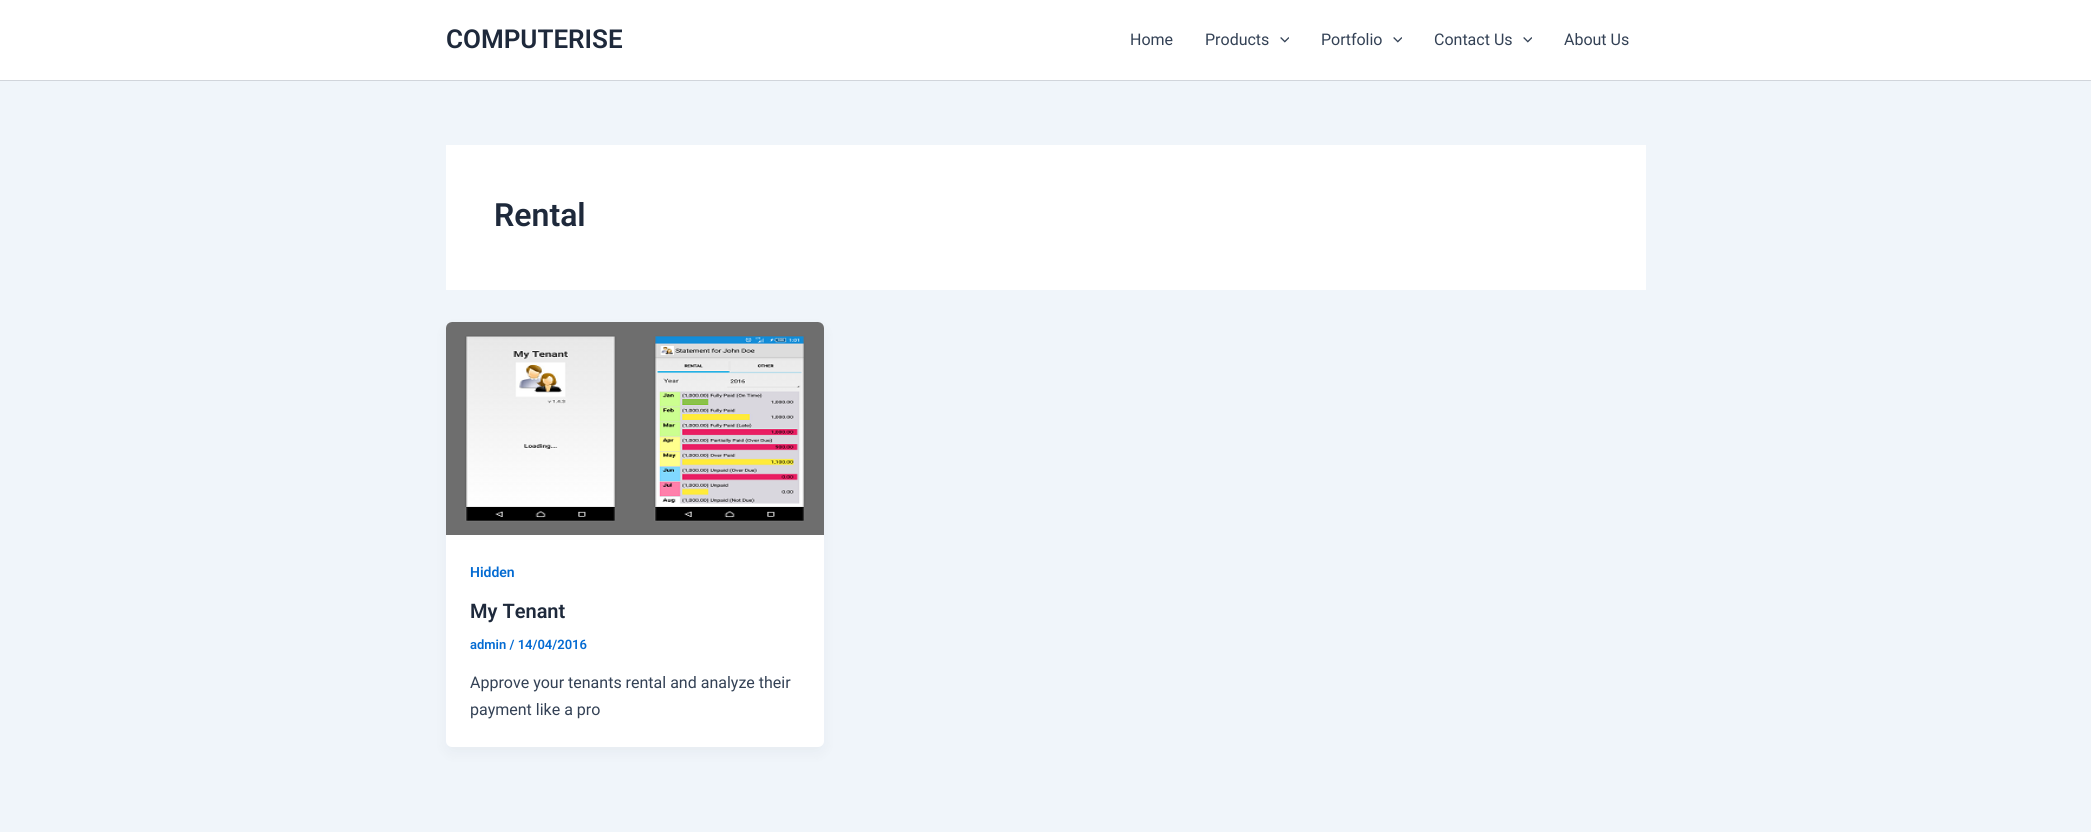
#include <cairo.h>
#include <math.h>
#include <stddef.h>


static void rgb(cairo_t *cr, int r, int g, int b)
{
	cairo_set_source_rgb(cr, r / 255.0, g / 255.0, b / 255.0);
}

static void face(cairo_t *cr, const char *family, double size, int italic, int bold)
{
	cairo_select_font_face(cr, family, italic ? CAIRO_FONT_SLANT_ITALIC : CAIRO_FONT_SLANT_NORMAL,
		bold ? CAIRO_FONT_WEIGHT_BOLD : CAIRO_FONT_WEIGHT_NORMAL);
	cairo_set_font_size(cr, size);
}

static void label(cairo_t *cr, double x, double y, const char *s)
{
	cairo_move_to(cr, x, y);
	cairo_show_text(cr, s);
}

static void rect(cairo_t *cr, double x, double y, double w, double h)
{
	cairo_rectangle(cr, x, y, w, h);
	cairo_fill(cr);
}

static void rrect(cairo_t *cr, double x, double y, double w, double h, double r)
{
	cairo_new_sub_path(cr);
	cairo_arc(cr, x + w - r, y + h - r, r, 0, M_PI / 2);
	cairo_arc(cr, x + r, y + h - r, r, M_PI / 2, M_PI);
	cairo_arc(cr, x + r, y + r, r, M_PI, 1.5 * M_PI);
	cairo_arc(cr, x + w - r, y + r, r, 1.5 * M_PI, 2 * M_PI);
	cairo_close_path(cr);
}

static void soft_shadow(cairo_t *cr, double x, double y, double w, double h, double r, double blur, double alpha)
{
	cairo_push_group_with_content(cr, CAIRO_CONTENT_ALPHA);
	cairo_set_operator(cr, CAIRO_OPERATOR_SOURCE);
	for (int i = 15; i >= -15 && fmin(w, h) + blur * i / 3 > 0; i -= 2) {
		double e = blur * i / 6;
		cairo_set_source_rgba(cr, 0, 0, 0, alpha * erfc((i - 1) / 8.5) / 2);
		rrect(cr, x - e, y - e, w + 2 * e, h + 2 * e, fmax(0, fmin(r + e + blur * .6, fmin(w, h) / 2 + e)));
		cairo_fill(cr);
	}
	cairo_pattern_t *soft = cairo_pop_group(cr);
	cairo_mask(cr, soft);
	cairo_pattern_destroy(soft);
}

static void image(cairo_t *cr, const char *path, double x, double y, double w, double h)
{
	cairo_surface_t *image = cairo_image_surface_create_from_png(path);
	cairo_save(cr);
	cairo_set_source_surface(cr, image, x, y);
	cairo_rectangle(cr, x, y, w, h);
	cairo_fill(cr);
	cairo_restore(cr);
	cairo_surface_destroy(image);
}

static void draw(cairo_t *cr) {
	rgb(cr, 240, 245, 250);
	cairo_paint(cr);
	rgb(cr, 255, 255, 255);
	rect(cr, 0, 0, 2091, 80);
	rgb(cr, 209, 213, 219);
	rect(cr, 0, 80, 2091, 1);
	face(cr, "Roboto SemiBold", 26, 0, 0);
	rgb(cr, 30, 41, 59);
	label(cr, 446, 48, "COMPUTERISE");
	face(cr, "Roboto", 16, 0, 0);
	rgb(cr, 51, 65, 85);
	label(cr, 1130, 45, "Home");
	label(cr, 1205, 45, "Products");
	image(cr, "image0.png", 1280, 37, 9, 6);
	label(cr, 1321, 45, "Portfolio");
	image(cr, "image0.png", 1393, 37, 9, 6);
	label(cr, 1434, 45, "Contact Us");
	image(cr, "image0.png", 1523, 37, 9, 6);
	label(cr, 1564, 45, "About Us");
	rgb(cr, 255, 255, 255);
	rect(cr, 446, 145, 1200, 145);
	face(cr, "Roboto SemiBold", 32, 0, 0);
	rgb(cr, 30, 41, 59);
	label(cr, 494, 226, "Rental");
	rgb(cr, 16, 24, 40);
	soft_shadow(cr, 448, 330, 374, 421, 4, 7.5, 0.05);
	rgb(cr, 255, 255, 255);
	rrect(cr, 446, 322, 378, 425, 6);
	cairo_fill(cr);
	image(cr, "image1.png", 446, 322, 378, 213);
	face(cr, "Roboto SemiBold", 14, 0, 0);
	rgb(cr, 4, 107, 210);
	label(cr, 470, 577, "Hidden");
	face(cr, "Roboto SemiBold", 20, 0, 0);
	rgb(cr, 30, 41, 59);
	label(cr, 470, 618, "My Tenant");
	face(cr, "Roboto SemiBold", 13, 0, 0);
	rgb(cr, 4, 107, 210);
	label(cr, 470, 649, "admin / 14/04/2016");
	face(cr, "Roboto", 16, 0, 0);
	rgb(cr, 51, 65, 85);
	label(cr, 470, 688, "Approve your tenants rental and analyze their");
	label(cr, 470, 715, "payment like a pro");
}

int main(void) {
	cairo_surface_t *surface = cairo_image_surface_create(CAIRO_FORMAT_RGB24, 2091, 832);
	cairo_t *cr = cairo_create(surface);
	cairo_font_options_t *options = cairo_font_options_create();
	cairo_font_options_set_hint_metrics(options, CAIRO_HINT_METRICS_OFF);
	cairo_font_options_set_hint_style(options, CAIRO_HINT_STYLE_NONE);
	cairo_set_font_options(cr, options);
	cairo_set_miter_limit(cr, 4);
	draw(cr);
	cairo_surface_write_to_png(surface, "render.png");
	cairo_font_options_destroy(options);
	cairo_destroy(cr);
	cairo_surface_destroy(surface);
	return 0;
}
